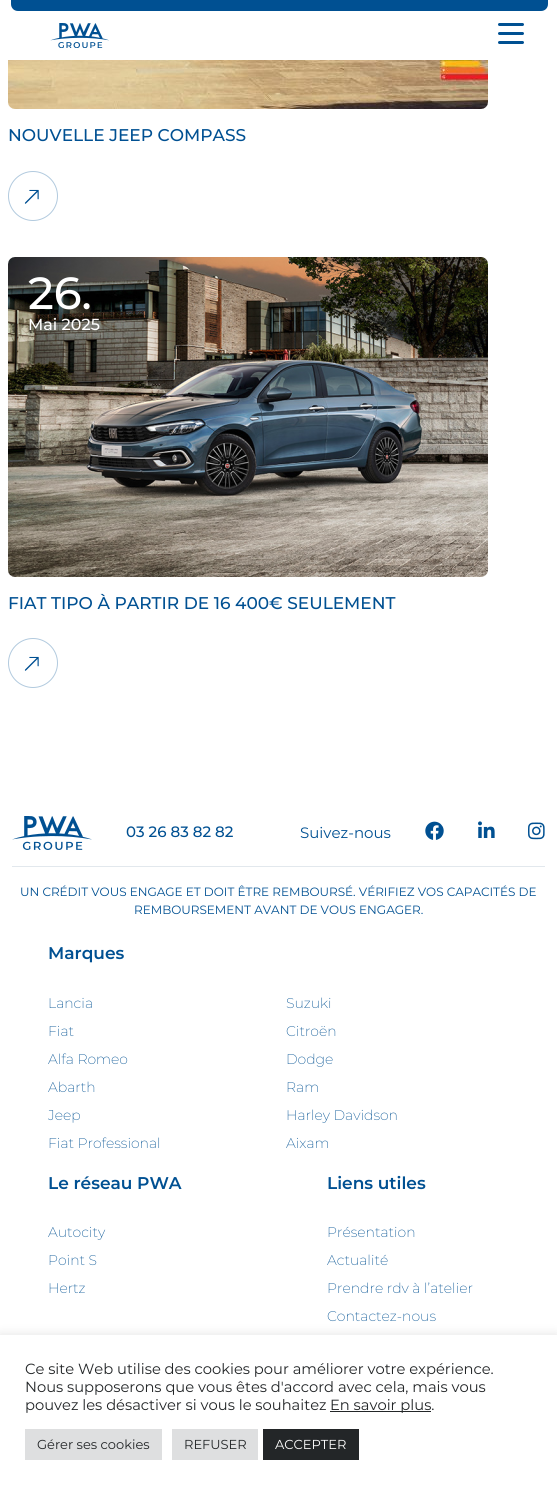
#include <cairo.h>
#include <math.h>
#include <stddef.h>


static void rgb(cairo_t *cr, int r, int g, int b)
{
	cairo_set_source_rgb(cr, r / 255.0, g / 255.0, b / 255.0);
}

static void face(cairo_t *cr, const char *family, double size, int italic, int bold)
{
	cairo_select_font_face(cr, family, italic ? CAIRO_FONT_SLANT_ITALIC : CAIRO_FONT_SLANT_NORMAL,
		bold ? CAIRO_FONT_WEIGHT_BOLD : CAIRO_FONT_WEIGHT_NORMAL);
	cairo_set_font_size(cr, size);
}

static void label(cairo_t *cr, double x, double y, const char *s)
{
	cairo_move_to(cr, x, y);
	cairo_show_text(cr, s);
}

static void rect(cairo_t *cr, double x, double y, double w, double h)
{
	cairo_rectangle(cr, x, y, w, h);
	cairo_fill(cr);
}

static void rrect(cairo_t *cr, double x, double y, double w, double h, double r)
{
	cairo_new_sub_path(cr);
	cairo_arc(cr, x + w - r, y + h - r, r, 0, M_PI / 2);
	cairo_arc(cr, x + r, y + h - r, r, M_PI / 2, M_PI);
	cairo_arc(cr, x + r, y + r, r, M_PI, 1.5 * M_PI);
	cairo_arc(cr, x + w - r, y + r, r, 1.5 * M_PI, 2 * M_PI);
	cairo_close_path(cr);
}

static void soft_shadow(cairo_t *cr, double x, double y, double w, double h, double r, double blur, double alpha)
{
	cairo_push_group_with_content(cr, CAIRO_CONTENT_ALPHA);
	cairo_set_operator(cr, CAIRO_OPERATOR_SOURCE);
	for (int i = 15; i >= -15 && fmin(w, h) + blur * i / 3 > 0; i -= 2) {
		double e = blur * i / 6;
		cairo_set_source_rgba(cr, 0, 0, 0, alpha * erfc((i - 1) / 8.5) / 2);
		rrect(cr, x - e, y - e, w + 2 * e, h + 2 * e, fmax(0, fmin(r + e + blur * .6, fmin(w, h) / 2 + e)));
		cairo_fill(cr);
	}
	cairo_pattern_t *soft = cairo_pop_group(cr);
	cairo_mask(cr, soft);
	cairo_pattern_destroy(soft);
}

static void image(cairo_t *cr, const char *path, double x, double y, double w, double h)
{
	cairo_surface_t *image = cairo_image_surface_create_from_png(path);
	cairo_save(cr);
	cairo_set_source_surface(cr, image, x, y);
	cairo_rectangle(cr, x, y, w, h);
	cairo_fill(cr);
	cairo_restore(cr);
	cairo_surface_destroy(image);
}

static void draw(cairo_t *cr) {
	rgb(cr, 255, 255, 255);
	cairo_paint(cr);
	rgb(cr, 0, 80, 146);
	cairo_new_path(cr);
	cairo_move_to(cr, 11, -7);
	cairo_line_to(cr, 548, -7);
	cairo_line_to(cr, 548, 4);
	cairo_curve_to(cr, 548, 8, 545, 11, 541, 11);
	cairo_line_to(cr, 18, 11);
	cairo_curve_to(cr, 14, 11, 11, 8, 11, 4);
	cairo_close_path(cr);
	cairo_fill(cr);
	image(cr, "image0.png", 50, 23, 59, 25);
	rrect(cr, 498, 23, 26, 3, 1.5);
	cairo_fill(cr);
	rrect(cr, 498, 32, 26, 3, 1.5);
	cairo_fill(cr);
	rrect(cr, 498, 41, 26, 3, 1.5);
	cairo_fill(cr);
	image(cr, "image1.png", 8, 60, 480, 49);
	face(cr, "Montserrat Medium", 17, 0, 0);
	label(cr, 8, 141, "NOUVELLE JEEP COMPASS");
	cairo_new_path(cr);
	cairo_arc(cr, 33, 196, 24.5, 0, 2 * M_PI);
	rgb(cr, 178, 202, 222);
	cairo_set_line_width(cr, 1);
	cairo_stroke(cr);
	image(cr, "image2.png", 24, 189, 15, 15);
	image(cr, "image3.png", 8, 257, 480, 320);
	face(cr, "Montserrat Medium", 45, 0, 0);
	rgb(cr, 255, 255, 255);
	label(cr, 28, 309, "26.");
	face(cr, "Montserrat Medium", 16, 0, 0);
	label(cr, 28, 330, "Mai 2025");
	face(cr, "Montserrat Medium", 17, 0, 0);
	rgb(cr, 0, 80, 146);
	label(cr, 8, 609, "FIAT TIPO À PARTIR DE 16 400€ SEULEMENT");
	cairo_new_path(cr);
	cairo_arc(cr, 33, 663, 24.5, 0, 2 * M_PI);
	rgb(cr, 178, 202, 222);
	cairo_stroke(cr);
	image(cr, "image2.png", 24, 656, 15, 15);
	image(cr, "image4.png", 12, 816, 80, 34);
	face(cr, "Montserrat Medium", 15, 0, 0);
	rgb(cr, 0, 80, 146);
	label(cr, 126, 837, "03 26 83 82 82");
	face(cr, "Montserrat", 15, 0, 0);
	label(cr, 300, 838, "Suivez-nous");
	image(cr, "image5.png", 425, 821, 19, 19);
	image(cr, "image6.png", 478, 821, 17, 17);
	image(cr, "image7.png", 528, 822, 17, 18);
	rgb(cr, 226, 232, 237);
	rect(cr, 12, 866, 533, 1);
	face(cr, "Montserrat", 12, 0, 0);
	rgb(cr, 0, 80, 146);
	label(cr, 20, 896, "UN CRÉDIT VOUS ENGAGE ET DOIT ÊTRE REMBOURSÉ. VÉRIFIEZ VOS CAPACITÉS DE");
	label(cr, 134, 914, "REMBOURSEMENT AVANT DE VOUS ENGAGER.");
	face(cr, "Montserrat SemiBold", 17, 0, 0);
	label(cr, 48, 959, "Marques");
	face(cr, "Montserrat ExtraLight", 14, 0, 0);
	label(cr, 48, 1008, "Lancia");
	label(cr, 286, 1008, "Suzuki");
	label(cr, 48, 1036, "Fiat");
	label(cr, 286, 1036, "Citroën");
	label(cr, 48, 1064, "Alfa Romeo");
	label(cr, 286, 1064, "Dodge");
	label(cr, 48, 1092, "Abarth");
	label(cr, 286, 1092, "Ram");
	label(cr, 48, 1120, "Jeep");
	label(cr, 286, 1120, "Harley Davidson");
	label(cr, 48, 1148, "Fiat Professional");
	label(cr, 286, 1148, "Aixam");
	face(cr, "Montserrat SemiBold", 17, 0, 0);
	label(cr, 48, 1189, "Le réseau PWA");
	face(cr, "Montserrat ExtraLight", 14, 0, 0);
	label(cr, 48, 1237, "Autocity");
	label(cr, 48, 1265, "Point S");
	label(cr, 48, 1293, "Hertz");
	face(cr, "Montserrat SemiBold", 17, 0, 0);
	label(cr, 327, 1189, "Liens utiles");
	face(cr, "Montserrat ExtraLight", 14, 0, 0);
	label(cr, 327, 1237, "Présentation");
	label(cr, 327, 1265, "Actualité");
	label(cr, 327, 1293, "Prendre rdv à l’atelier");
	label(cr, 327, 1321, "Contactez-nous");
	rgb(cr, 172, 171, 171);
	soft_shadow(cr, 0, 1334, 557, 155, 0, 5, 0.3);
	rgb(cr, 255, 255, 255);
	rect(cr, 0, 1335, 557, 155);
	face(cr, "Montserrat", 14.7, 0, 0);
	rgb(cr, 35, 38, 40);
	label(cr, 25, 1374, "Ce site Web utilise des cookies pour améliorer votre expérience.");
	label(cr, 25, 1392, "Nous supposerons que vous êtes d'accord avec cela, mais vous");
	label(cr, 25, 1410, "pouvez les désactiver si vous le souhaitez");
	rect(cr, 330, 1411, 101, 1);
	label(cr, 330, 1410, "En savoir plus.");
	rgb(cr, 222, 223, 224);
	rect(cr, 25, 1429, 137, 31);
	face(cr, "Montserrat", 13, 0, 0);
	rgb(cr, 35, 38, 40);
	label(cr, 37, 1449, "Gérer ses cookies");
	rgb(cr, 222, 223, 224);
	rect(cr, 172, 1429, 86, 31);
	rgb(cr, 35, 38, 40);
	label(cr, 184, 1449, "REFUSER");
	rect(cr, 263, 1429, 96, 31);
	rgb(cr, 255, 255, 255);
	label(cr, 275, 1449, "ACCEPTER");
}

int main(void) {
	cairo_surface_t *surface = cairo_image_surface_create(CAIRO_FORMAT_RGB24, 557, 1490);
	cairo_t *cr = cairo_create(surface);
	cairo_font_options_t *options = cairo_font_options_create();
	cairo_font_options_set_hint_metrics(options, CAIRO_HINT_METRICS_OFF);
	cairo_font_options_set_hint_style(options, CAIRO_HINT_STYLE_NONE);
	cairo_set_font_options(cr, options);
	cairo_set_miter_limit(cr, 4);
	draw(cr);
	cairo_surface_write_to_png(surface, "render.png");
	cairo_font_options_destroy(options);
	cairo_destroy(cr);
	cairo_surface_destroy(surface);
	return 0;
}
